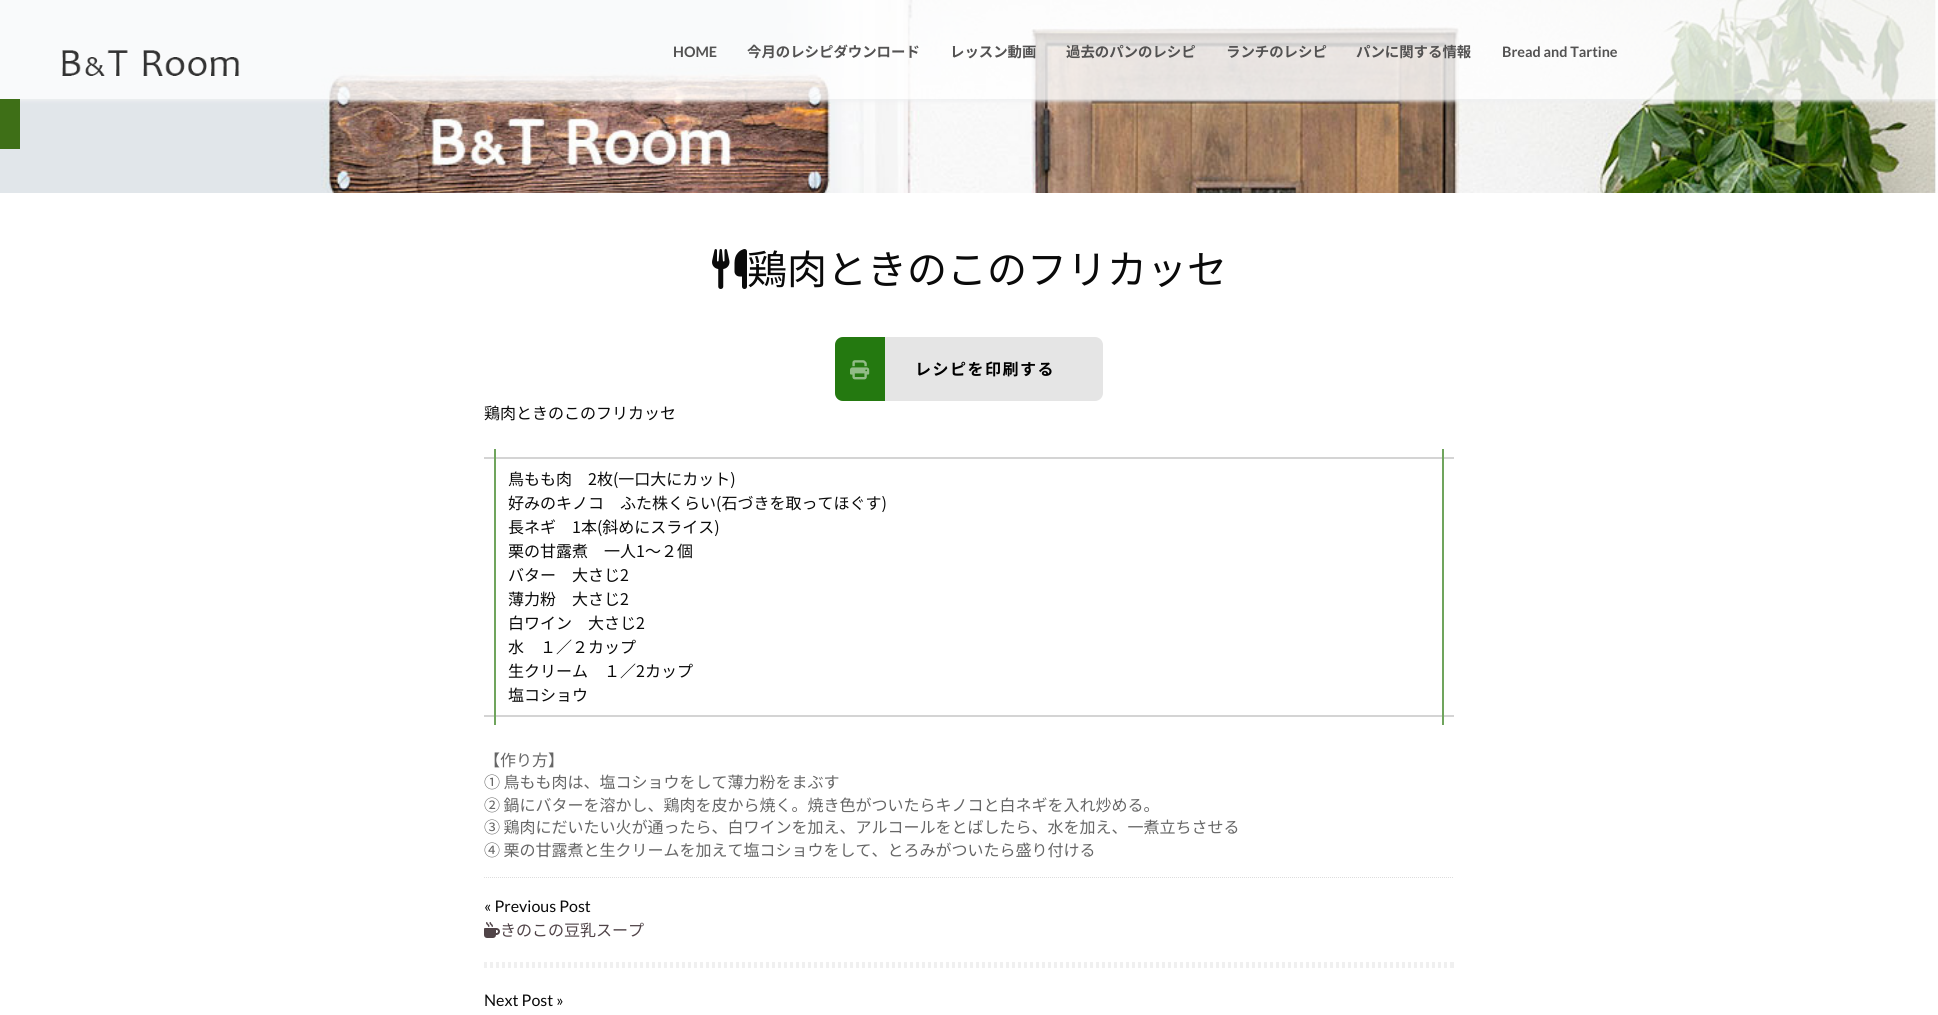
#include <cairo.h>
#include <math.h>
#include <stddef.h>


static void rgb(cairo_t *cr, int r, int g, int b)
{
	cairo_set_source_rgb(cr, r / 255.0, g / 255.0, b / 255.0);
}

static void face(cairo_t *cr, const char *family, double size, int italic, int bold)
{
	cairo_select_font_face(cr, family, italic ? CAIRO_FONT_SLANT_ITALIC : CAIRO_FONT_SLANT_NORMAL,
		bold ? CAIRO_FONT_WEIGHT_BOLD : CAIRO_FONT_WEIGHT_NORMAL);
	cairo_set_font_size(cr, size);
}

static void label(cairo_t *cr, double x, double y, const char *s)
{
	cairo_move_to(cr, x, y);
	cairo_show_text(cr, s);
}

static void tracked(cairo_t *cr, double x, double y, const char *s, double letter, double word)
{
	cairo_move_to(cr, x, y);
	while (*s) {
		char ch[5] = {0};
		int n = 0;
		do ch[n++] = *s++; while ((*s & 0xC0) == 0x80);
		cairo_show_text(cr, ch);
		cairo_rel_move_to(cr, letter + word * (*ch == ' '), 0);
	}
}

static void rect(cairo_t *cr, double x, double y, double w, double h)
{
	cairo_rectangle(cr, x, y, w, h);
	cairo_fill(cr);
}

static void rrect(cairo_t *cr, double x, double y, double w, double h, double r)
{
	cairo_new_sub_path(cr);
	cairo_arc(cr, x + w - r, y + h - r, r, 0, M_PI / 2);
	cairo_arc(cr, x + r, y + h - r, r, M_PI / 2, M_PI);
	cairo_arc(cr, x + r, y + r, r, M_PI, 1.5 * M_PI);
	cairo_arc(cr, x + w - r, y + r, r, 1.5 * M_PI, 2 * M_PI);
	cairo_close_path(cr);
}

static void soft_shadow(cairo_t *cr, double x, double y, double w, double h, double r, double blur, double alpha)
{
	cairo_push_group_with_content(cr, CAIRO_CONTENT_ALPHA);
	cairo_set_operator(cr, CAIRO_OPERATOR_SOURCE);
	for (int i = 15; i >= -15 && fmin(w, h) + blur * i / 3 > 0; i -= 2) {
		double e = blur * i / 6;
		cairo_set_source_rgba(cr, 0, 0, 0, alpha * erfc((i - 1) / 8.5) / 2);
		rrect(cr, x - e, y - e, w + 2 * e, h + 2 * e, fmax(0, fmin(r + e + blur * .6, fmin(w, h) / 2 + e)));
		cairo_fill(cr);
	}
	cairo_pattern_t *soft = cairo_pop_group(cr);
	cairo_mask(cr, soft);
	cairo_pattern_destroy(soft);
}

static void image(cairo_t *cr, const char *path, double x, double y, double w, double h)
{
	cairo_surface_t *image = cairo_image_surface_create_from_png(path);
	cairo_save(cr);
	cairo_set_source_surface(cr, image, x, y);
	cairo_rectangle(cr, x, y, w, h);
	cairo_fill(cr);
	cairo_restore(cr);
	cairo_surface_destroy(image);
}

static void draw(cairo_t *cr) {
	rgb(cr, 255, 255, 255);
	cairo_paint(cr);
	image(cr, "image0.png", 0, 0, 1938, 193);
	cairo_save(cr);
	cairo_rectangle(cr, 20, 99, 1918, 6);
	cairo_clip(cr);
	rgb(cr, 238, 239, 241);
	soft_shadow(cr, 0, 2, 1938, 99, 0, 2, 1);
	cairo_restore(cr);
	cairo_set_source_rgba(cr, 1, 1, 1, 0.8);
	rect(cr, 0, 0, 1938, 99);
	image(cr, "image1.png", 62, 50, 178, 27);
	face(cr, "Lato", 14.4, 0, 1);
	rgb(cr, 83, 82, 82);
	label(cr, 673, 57, "HOME");
	face(cr, "Noto Sans JP", 14.4, 0, 1);
	label(cr, 747, 57, "今月のレシピダウンロード");
	label(cr, 950, 57, "レッスン動画");
	label(cr, 1066, 57, "過去のパンのレシピ");
	label(cr, 1226, 57, "ランチのレシピ");
	label(cr, 1356, 57, "パンに関する情報");
	face(cr, "Lato", 14.4, 0, 1);
	label(cr, 1502, 57, "Bread and Tartine");
	rgb(cr, 62, 111, 23);
	rect(cr, 0, 99, 20, 50);
	image(cr, "image2.png", 712, 249, 35, 40);
	face(cr, "Noto Sans JP", 40, 0, 0);
	rgb(cr, 10, 10, 10);
	label(cr, 747, 284, "鶏肉ときのこのフリカッセ");
	rgb(cr, 229, 229, 229);
	rrect(cr, 835, 337, 268, 64, 8);
	cairo_fill(cr);
	rgb(cr, 36, 121, 16);
	cairo_new_path(cr);
	cairo_move_to(cr, 843, 337);
	cairo_line_to(cr, 885, 337);
	cairo_line_to(cr, 885, 401);
	cairo_line_to(cr, 843, 401);
	cairo_curve_to(cr, 838.5, 401, 835, 397.5, 835, 393);
	cairo_line_to(cr, 835, 345);
	cairo_curve_to(cr, 835, 340.5, 838.5, 337, 843, 337);
	cairo_close_path(cr);
	cairo_fill(cr);
	image(cr, "image3.png", 850, 360, 20, 20);
	face(cr, "Noto Sans JP", 16, 0, 1);
	rgb(cr, 0, 0, 0);
	tracked(cr, 915, 375, "レシピを印刷する", 1.5, 0);
	face(cr, "Noto Sans JP", 16, 0, 0);
	rgb(cr, 10, 10, 10);
	label(cr, 484, 419, "鶏肉ときのこのフリカッセ");
	rgb(cr, 212, 212, 212);
	rect(cr, 484, 457, 970, 2);
	rect(cr, 484, 715, 970, 2);
	rgb(cr, 112, 165, 93);
	rect(cr, 494, 449, 2, 276);
	rgb(cr, 10, 10, 10);
	label(cr, 508, 485, "鳥もも肉　2枚(一口大にカット)");
	rgb(cr, 112, 165, 93);
	rect(cr, 1442, 449, 2, 276);
	rgb(cr, 10, 10, 10);
	label(cr, 508, 509, "好みのキノコ　ふた株くらい(石づきを取ってほぐす)");
	label(cr, 508, 533, "長ネギ　1本(斜めにスライス)");
	label(cr, 508, 557, "栗の甘露煮　一人1〜２個");
	label(cr, 508, 581, "バター　大さじ2");
	label(cr, 508, 605, "薄力粉　大さじ2");
	label(cr, 508, 629, "白ワイン　大さじ2");
	label(cr, 508, 653, "水　１／２カップ");
	label(cr, 508, 677, "生クリーム　１／2カップ");
	label(cr, 508, 701, "塩コショウ");
	rgb(cr, 102, 102, 102);
	label(cr, 484, 766, "【作り方】");
	label(cr, 484, 788, "① 鳥もも肉は、塩コショウをして薄力粉をまぶす");
	label(cr, 484, 811, "② 鍋にバターを溶かし、鶏肉を皮から焼く。焼き色がついたらキノコと白ネギを入れ炒める。");
	label(cr, 484, 833, "③ 鶏肉にだいたい火が通ったら、白ワインを加え、アルコールをとばしたら、水を加え、一煮立ちさせる");
	label(cr, 484, 856, "④ 栗の甘露煮と生クリームを加えて塩コショウをして、とろみがついたら盛り付ける");
	cairo_new_path(cr);
	cairo_move_to(cr, 484, 877.5);
	cairo_line_to(cr, 1454, 877.5);
	rgb(cr, 221, 221, 221);
	cairo_set_line_width(cr, 1);
	cairo_set_dash(cr, (double[]){1, 1}, 2, 0);
	cairo_stroke(cr);
	face(cr, "Lato", 16, 0, 0);
	rgb(cr, 10, 10, 10);
	label(cr, 484, 912, "« Previous Post");
	image(cr, "image4.png", 484, 922, 16, 16);
	face(cr, "Noto Sans JP", 16, 0, 0);
	rgb(cr, 80, 68, 72);
	label(cr, 500, 936, "きのこの豆乳スープ");
	cairo_new_path(cr);
	cairo_move_to(cr, 484, 963.5);
	cairo_line_to(cr, 1454, 963.5);
	rgb(cr, 240, 240, 240);
	cairo_set_line_width(cr, 3);
	cairo_set_dash(cr, (double[]){3, 3}, 2, 0);
	cairo_stroke(cr);
	rect(cr, 1451, 962, 3, 6);
	cairo_new_path(cr);
	cairo_move_to(cr, 484, 966.5);
	cairo_line_to(cr, 1454, 966.5);
	cairo_stroke(cr);
	face(cr, "Lato", 16, 0, 0);
	rgb(cr, 10, 10, 10);
	label(cr, 484, 1006, "Next Post »");
}

int main(void) {
	cairo_surface_t *surface = cairo_image_surface_create(CAIRO_FORMAT_RGB24, 1938, 1015);
	cairo_t *cr = cairo_create(surface);
	cairo_font_options_t *options = cairo_font_options_create();
	cairo_font_options_set_hint_metrics(options, CAIRO_HINT_METRICS_OFF);
	cairo_font_options_set_hint_style(options, CAIRO_HINT_STYLE_NONE);
	cairo_set_font_options(cr, options);
	cairo_set_miter_limit(cr, 4);
	draw(cr);
	cairo_surface_write_to_png(surface, "render.png");
	cairo_font_options_destroy(options);
	cairo_destroy(cr);
	cairo_surface_destroy(surface);
	return 0;
}
